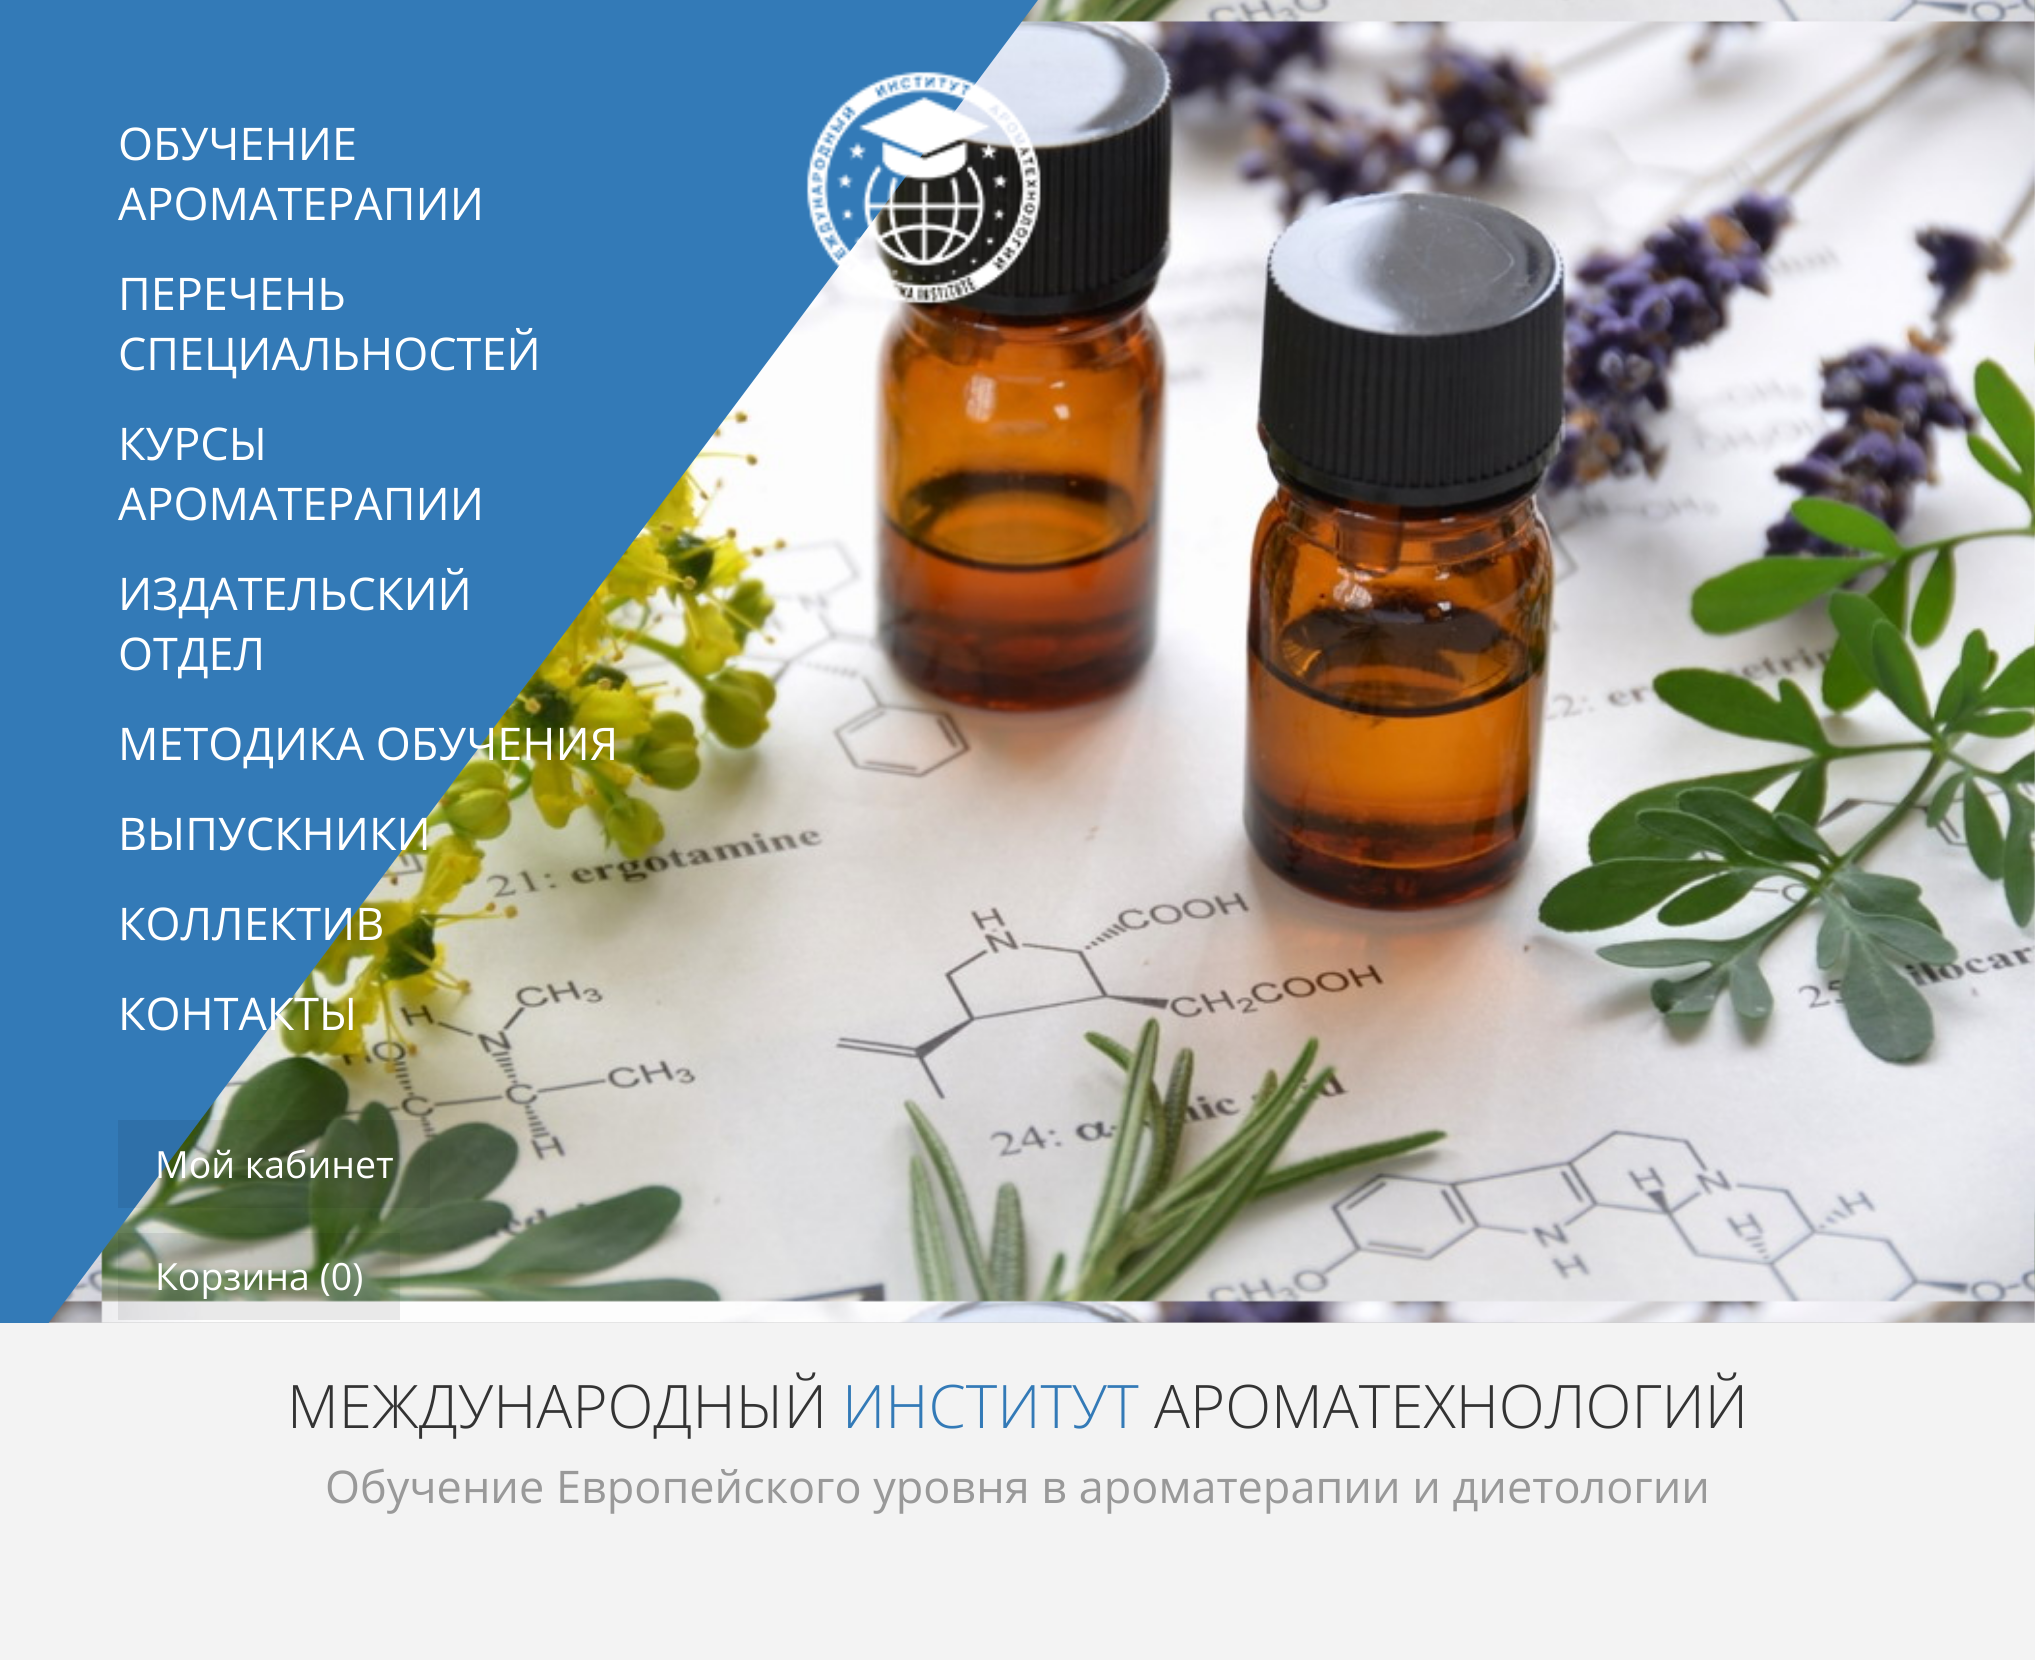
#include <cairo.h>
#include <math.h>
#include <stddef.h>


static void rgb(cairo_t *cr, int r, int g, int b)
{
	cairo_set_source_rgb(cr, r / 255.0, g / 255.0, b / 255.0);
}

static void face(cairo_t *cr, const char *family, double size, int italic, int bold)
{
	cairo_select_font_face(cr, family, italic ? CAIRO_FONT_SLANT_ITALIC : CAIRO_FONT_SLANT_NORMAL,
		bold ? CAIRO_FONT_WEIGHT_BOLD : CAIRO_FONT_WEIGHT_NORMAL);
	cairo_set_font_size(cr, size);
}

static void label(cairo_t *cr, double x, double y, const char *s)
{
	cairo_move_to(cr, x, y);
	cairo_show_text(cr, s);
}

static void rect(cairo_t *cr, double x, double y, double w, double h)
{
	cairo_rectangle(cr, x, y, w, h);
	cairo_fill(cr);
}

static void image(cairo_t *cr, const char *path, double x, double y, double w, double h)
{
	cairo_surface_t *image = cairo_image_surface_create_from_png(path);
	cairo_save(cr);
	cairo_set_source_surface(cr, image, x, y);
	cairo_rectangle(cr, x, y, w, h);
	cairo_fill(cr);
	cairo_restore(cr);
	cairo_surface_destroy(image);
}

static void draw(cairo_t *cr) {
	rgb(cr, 243, 243, 243);
	cairo_paint(cr);
	rgb(cr, 204, 204, 204);
	rect(cr, 48, 1322, 1987, 1);
	image(cr, "image0.png", 48, 0, 1987, 1323);
	cairo_save(cr);
	cairo_rectangle(cr, 0, 0, 2035, 1323);
	cairo_clip(cr);
	rgb(cr, 51, 122, 183);
	cairo_new_path(cr);
	cairo_move_to(cr, -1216, 421);
	cairo_line_to(cr, -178, -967);
	cairo_line_to(cr, 1038, 0);
	cairo_line_to(cr, 0, 1388);
	cairo_close_path(cr);
	cairo_fill(cr);
	cairo_restore(cr);
	face(cr, "Open Sans", 45, 0, 0);
	rgb(cr, 255, 255, 255);
	label(cr, 118, 160, "ОБУЧЕНИЕ");
	label(cr, 118, 220, "АРОМАТЕРАПИИ");
	label(cr, 118, 310, "ПЕРЕЧЕНЬ");
	label(cr, 118, 370, "СПЕЦИАЛЬНОСТЕЙ");
	label(cr, 118, 460, "КУРСЫ");
	label(cr, 118, 520, "АРОМАТЕРАПИИ");
	label(cr, 118, 610, "ИЗДАТЕЛЬСКИЙ");
	label(cr, 118, 670, "ОТДЕЛ");
	label(cr, 118, 760, "МЕТОДИКА ОБУЧЕНИЯ");
	label(cr, 118, 850, "ВЫПУСКНИКИ");
	label(cr, 118, 940, "КОЛЛЕКТИВ");
	label(cr, 118, 1030, "КОНТАКТЫ");
	cairo_set_source_rgba(cr, 0, 0, 0, 0.08);
	rect(cr, 118, 1120, 312, 88);
	face(cr, "Open Sans", 37.5, 0, 0);
	rgb(cr, 255, 255, 255);
	label(cr, 155, 1178, "Мой кабинет");
	cairo_set_source_rgba(cr, 0, 0, 0, 0.08);
	rect(cr, 118, 1233, 282, 87);
	rgb(cr, 255, 255, 255);
	label(cr, 155, 1290, "Корзина (0)");
	image(cr, "image1.png", 806, 71, 235, 233);
	face(cr, "Open Sans Light", 60, 0, 0);
	rgb(cr, 51, 51, 51);
	label(cr, 287, 1428, "МЕЖДУНАРОДНЫЙ");
	rgb(cr, 51, 122, 183);
	label(cr, 842, 1428, "ИНСТИТУТ");
	rgb(cr, 51, 51, 51);
	label(cr, 1154, 1428, "АРОМАТЕХНОЛОГИЙ");
	face(cr, "Open Sans", 45, 0, 0);
	rgb(cr, 153, 153, 153);
	label(cr, 325, 1503, "Обучение Европейского уровня в ароматерапии и диетологии");
}

int main(void) {
	cairo_surface_t *surface = cairo_image_surface_create(CAIRO_FORMAT_RGB24, 2035, 1660);
	cairo_t *cr = cairo_create(surface);
	cairo_font_options_t *options = cairo_font_options_create();
	cairo_font_options_set_hint_metrics(options, CAIRO_HINT_METRICS_OFF);
	cairo_font_options_set_hint_style(options, CAIRO_HINT_STYLE_NONE);
	cairo_set_font_options(cr, options);
	cairo_set_miter_limit(cr, 4);
	draw(cr);
	cairo_surface_write_to_png(surface, "render.png");
	cairo_font_options_destroy(options);
	cairo_destroy(cr);
	cairo_surface_destroy(surface);
	return 0;
}
